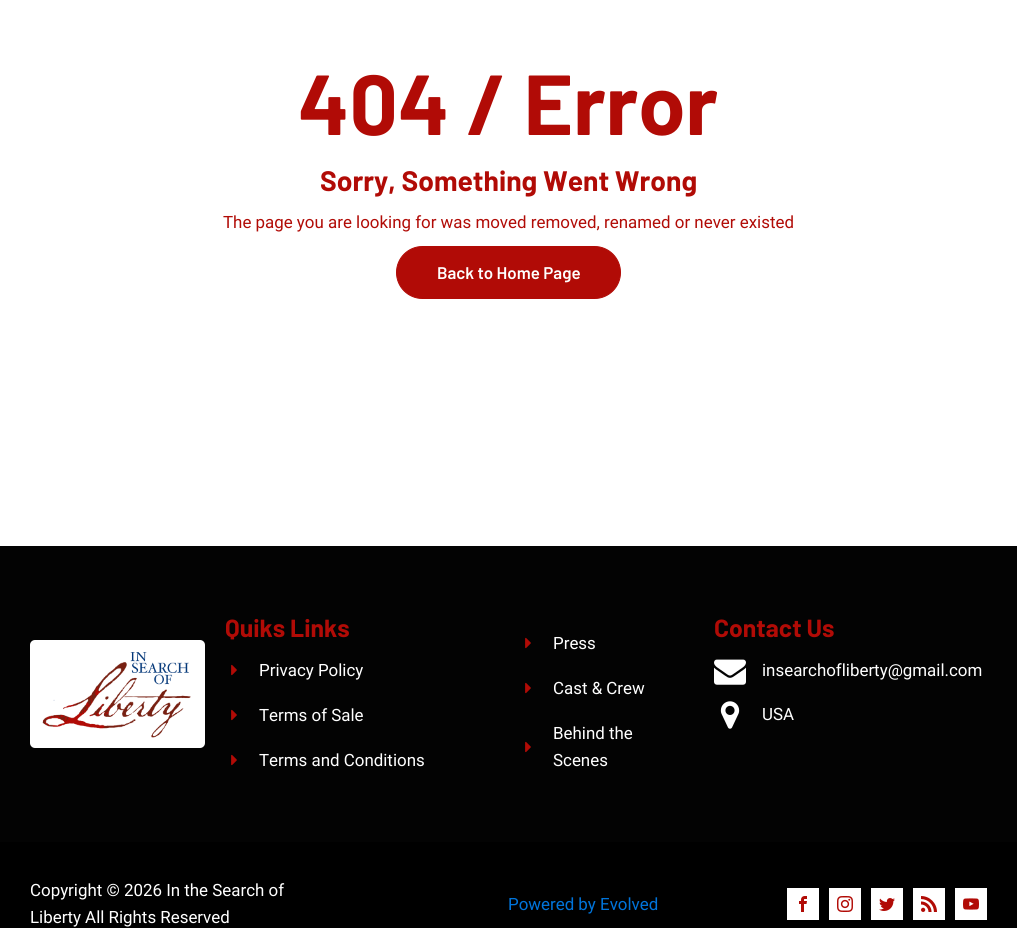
#include <cairo.h>
#include <math.h>
#include <stddef.h>


static void rgb(cairo_t *cr, int r, int g, int b)
{
	cairo_set_source_rgb(cr, r / 255.0, g / 255.0, b / 255.0);
}

static void face(cairo_t *cr, const char *family, double size, int italic, int bold)
{
	cairo_select_font_face(cr, family, italic ? CAIRO_FONT_SLANT_ITALIC : CAIRO_FONT_SLANT_NORMAL,
		bold ? CAIRO_FONT_WEIGHT_BOLD : CAIRO_FONT_WEIGHT_NORMAL);
	cairo_set_font_size(cr, size);
}

static void label(cairo_t *cr, double x, double y, const char *s)
{
	cairo_move_to(cr, x, y);
	cairo_show_text(cr, s);
}

static void rect(cairo_t *cr, double x, double y, double w, double h)
{
	cairo_rectangle(cr, x, y, w, h);
	cairo_fill(cr);
}

static void rrect(cairo_t *cr, double x, double y, double w, double h, double r)
{
	cairo_new_sub_path(cr);
	cairo_arc(cr, x + w - r, y + h - r, r, 0, M_PI / 2);
	cairo_arc(cr, x + r, y + h - r, r, M_PI / 2, M_PI);
	cairo_arc(cr, x + r, y + r, r, M_PI, 1.5 * M_PI);
	cairo_arc(cr, x + w - r, y + r, r, 1.5 * M_PI, 2 * M_PI);
	cairo_close_path(cr);
}

static void image(cairo_t *cr, const char *path, double x, double y, double w, double h)
{
	cairo_surface_t *image = cairo_image_surface_create_from_png(path);
	cairo_save(cr);
	cairo_set_source_surface(cr, image, x, y);
	cairo_rectangle(cr, x, y, w, h);
	cairo_fill(cr);
	cairo_restore(cr);
	cairo_surface_destroy(image);
}

static void draw(cairo_t *cr) {
	rgb(cr, 255, 255, 255);
	cairo_paint(cr);
	face(cr, "Barlow", 85, 0, 1);
	rgb(cr, 177, 11, 6);
	label(cr, 298, 135, "404 / Error");
	face(cr, "Barlow", 28.2, 0, 1);
	label(cr, 320, 191, "Sorry, Something Went Wrong");
	face(cr, "Roboto", 16.9, 0, 0);
	label(cr, 223, 228, "The page you are looking for was moved removed, renamed or never existed");
	rrect(cr, 396.5, 246.5, 224, 52, 26);
	cairo_fill_preserve(cr);
	cairo_set_line_width(cr, 1);
	cairo_stroke(cr);
	face(cr, "Barlow SemiBold", 16.9, 0, 0);
	rgb(cr, 255, 255, 255);
	label(cr, 437, 279, "Back to Home Page");
	rgb(cr, 3, 3, 3);
	rect(cr, 0, 546, 1017, 296);
	rgb(cr, 255, 255, 255);
	rrect(cr, 30, 640, 175, 108, 5);
	cairo_fill(cr);
	image(cr, "image0.png", 42, 652, 149, 86);
	face(cr, "Barlow", 24.75, 0, 1);
	rgb(cr, 177, 11, 6);
	label(cr, 225, 637, "Quiks Links");
	image(cr, "image1.png", 231, 664, 6, 12);
	face(cr, "Roboto", 16.9, 0, 0);
	rgb(cr, 255, 255, 255);
	label(cr, 259, 676, "Privacy Policy");
	image(cr, "image1.png", 231, 709, 6, 12);
	label(cr, 259, 721, "Terms of Sale");
	image(cr, "image1.png", 231, 754, 6, 12);
	label(cr, 259, 766, "Terms and Conditions");
	image(cr, "image1.png", 525, 637, 6, 12);
	label(cr, 553, 649, "Press");
	image(cr, "image1.png", 525, 682, 6, 12);
	label(cr, 553, 694, "Cast & Crew");
	image(cr, "image1.png", 525, 741, 6, 12);
	label(cr, 553, 739, "Behind the");
	label(cr, 553, 766, "Scenes");
	face(cr, "Barlow", 24.75, 0, 1);
	rgb(cr, 177, 11, 6);
	label(cr, 714, 637, "Contact Us");
	image(cr, "image2.png", 714, 659, 32, 26);
	face(cr, "Roboto", 16.9, 0, 0);
	rgb(cr, 255, 255, 255);
	label(cr, 762, 676, "insearchofliberty@gmail.com");
	image(cr, "image3.png", 720, 701, 20, 28);
	label(cr, 762, 720, "USA");
	rgb(cr, 0, 0, 0);
	rect(cr, 0, 842, 1017, 86);
	rgb(cr, 255, 255, 255);
	label(cr, 30, 896, "Copyright © 2026 In the Search of");
	label(cr, 30, 923, "Liberty All Rights Reserved");
	rgb(cr, 0, 116, 219);
	label(cr, 508, 910, "Powered by Evolved");
	rgb(cr, 255, 255, 255);
	rect(cr, 787, 888, 32, 32);
	image(cr, "image4.png", 799, 896, 8, 16);
	rect(cr, 829, 888, 32, 32);
	image(cr, "image5.png", 837, 896, 16, 16);
	rect(cr, 871, 888, 32, 32);
	image(cr, "image6.png", 879, 898, 16, 13);
	rect(cr, 913, 888, 32, 32);
	image(cr, "image7.png", 921, 896, 16, 16);
	rect(cr, 955, 888, 32, 32);
	image(cr, "image8.png", 963, 898, 16, 12);
}

int main(void) {
	cairo_surface_t *surface = cairo_image_surface_create(CAIRO_FORMAT_RGB24, 1017, 928);
	cairo_t *cr = cairo_create(surface);
	cairo_font_options_t *options = cairo_font_options_create();
	cairo_font_options_set_hint_metrics(options, CAIRO_HINT_METRICS_OFF);
	cairo_font_options_set_hint_style(options, CAIRO_HINT_STYLE_NONE);
	cairo_set_font_options(cr, options);
	cairo_set_miter_limit(cr, 4);
	draw(cr);
	cairo_surface_write_to_png(surface, "render.png");
	cairo_font_options_destroy(options);
	cairo_destroy(cr);
	cairo_surface_destroy(surface);
	return 0;
}
